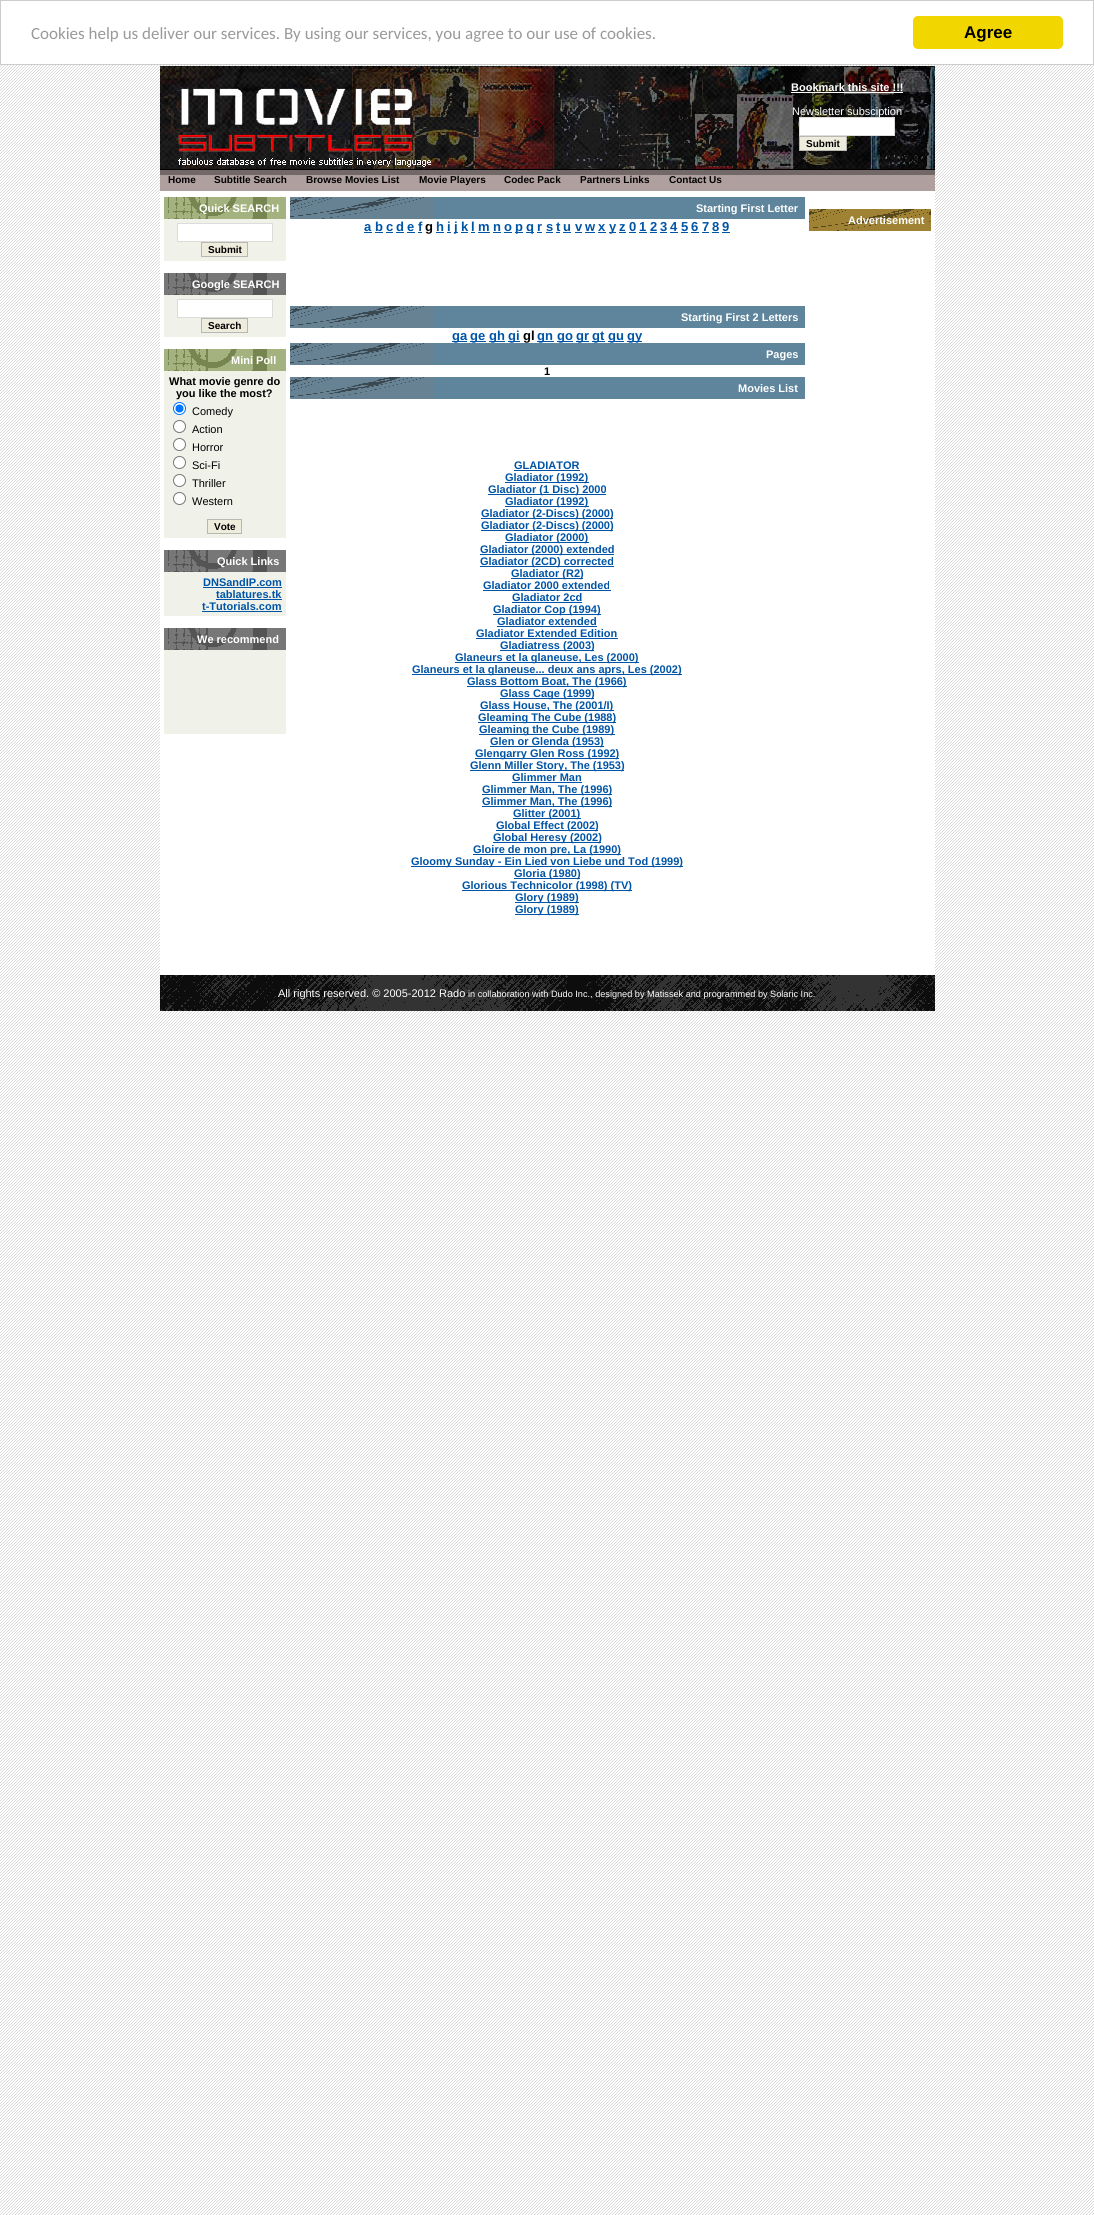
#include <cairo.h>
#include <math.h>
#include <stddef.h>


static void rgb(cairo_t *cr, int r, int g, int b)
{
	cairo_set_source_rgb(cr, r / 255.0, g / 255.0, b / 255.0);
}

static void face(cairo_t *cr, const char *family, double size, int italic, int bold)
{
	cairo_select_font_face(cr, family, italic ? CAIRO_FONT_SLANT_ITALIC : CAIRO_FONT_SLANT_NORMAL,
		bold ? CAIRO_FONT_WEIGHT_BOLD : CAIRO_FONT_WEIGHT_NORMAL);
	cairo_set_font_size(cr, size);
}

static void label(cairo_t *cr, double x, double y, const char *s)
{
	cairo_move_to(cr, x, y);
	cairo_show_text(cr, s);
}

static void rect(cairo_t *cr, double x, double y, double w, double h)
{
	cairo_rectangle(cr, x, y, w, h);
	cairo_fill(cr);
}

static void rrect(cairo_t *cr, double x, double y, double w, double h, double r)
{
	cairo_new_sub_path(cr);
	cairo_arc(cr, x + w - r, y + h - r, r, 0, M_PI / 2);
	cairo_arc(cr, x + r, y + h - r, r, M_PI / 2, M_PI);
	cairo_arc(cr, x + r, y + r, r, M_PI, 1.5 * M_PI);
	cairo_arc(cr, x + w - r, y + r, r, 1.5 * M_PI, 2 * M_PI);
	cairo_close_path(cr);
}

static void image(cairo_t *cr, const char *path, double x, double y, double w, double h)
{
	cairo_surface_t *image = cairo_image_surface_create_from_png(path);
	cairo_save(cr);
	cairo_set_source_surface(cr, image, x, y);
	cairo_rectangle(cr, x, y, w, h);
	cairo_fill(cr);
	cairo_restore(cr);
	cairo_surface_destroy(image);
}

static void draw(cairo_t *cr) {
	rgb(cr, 255, 255, 255);
	cairo_paint(cr);
	image(cr, "image0.png", 0, 65, 1094, 2150);
	cairo_rectangle(cr, 0.5, 0.5, 1093, 64);
	rgb(cr, 204, 204, 204);
	cairo_set_line_width(cr, 1);
	cairo_stroke(cr);
	face(cr, "Carlito", 17, 0, 0);
	rgb(cr, 153, 153, 153);
	label(cr, 31, 39, "Cookies help us deliver our services. By using our services, you agree to our use of cookies.");
	rgb(cr, 241, 214, 0);
	rrect(cr, 913, 16, 150, 33, 5);
	cairo_fill(cr);
	face(cr, "Liberation Sans", 17, 0, 1);
	rgb(cr, 0, 0, 0);
	label(cr, 964, 38, "Agree");
	rgb(cr, 255, 255, 255);
	rect(cr, 160, 191, 775, 784);
	image(cr, "image1.png", 160, 66, 775, 104);
	face(cr, "Liberation Sans", 11, 0, 1);
	label(cr, 791, 91, "Bookmark this site !!!");
	rect(cr, 791, 92, 112, 1);
	face(cr, "Liberation Sans", 11, 0, 0);
	label(cr, 792, 115, "Newsletter subsciption");
	cairo_rectangle(cr, 799.5, 117.5, 95, 18);
	cairo_fill_preserve(cr);
	rgb(cr, 220, 221, 218);
	cairo_stroke(cr);
	rgb(cr, 238, 236, 221);
	cairo_rectangle(cr, 799.5, 136.5, 47, 14);
	cairo_fill_preserve(cr);
	rgb(cr, 183, 184, 178);
	cairo_stroke(cr);
	face(cr, "Liberation Sans", 10, 0, 1);
	rgb(cr, 0, 0, 0);
	label(cr, 806, 147, "Submit");
	image(cr, "image2.png", 160, 170, 775, 21);
	label(cr, 168, 183, "Home");
	label(cr, 214, 183, "Subtitle Search");
	label(cr, 306, 183, "Browse Movies List");
	label(cr, 419, 183, "Movie Players");
	label(cr, 504, 183, "Codec Pack");
	label(cr, 580, 183, "Partners Links");
	label(cr, 669, 183, "Contact Us");
	image(cr, "image3.png", 164, 197, 122, 22);
	face(cr, "Liberation Sans", 11, 0, 1);
	rgb(cr, 255, 255, 255);
	label(cr, 199, 212, "Quick SEARCH");
	rgb(cr, 240, 242, 234);
	rect(cr, 164, 219, 122, 42);
	rgb(cr, 255, 255, 255);
	cairo_rectangle(cr, 177.5, 223.5, 95, 18);
	cairo_fill_preserve(cr);
	rgb(cr, 220, 221, 218);
	cairo_stroke(cr);
	rgb(cr, 238, 236, 221);
	cairo_rectangle(cr, 201.5, 242.5, 46, 14);
	cairo_fill_preserve(cr);
	rgb(cr, 183, 184, 178);
	cairo_stroke(cr);
	face(cr, "Liberation Sans", 10, 0, 1);
	rgb(cr, 0, 0, 0);
	label(cr, 208, 253, "Submit");
	image(cr, "image4.png", 164, 273, 122, 22);
	face(cr, "Liberation Sans", 11, 0, 1);
	rgb(cr, 255, 255, 255);
	label(cr, 192, 288, "Google SEARCH");
	rgb(cr, 240, 242, 234);
	rect(cr, 164, 295, 122, 42);
	rgb(cr, 255, 255, 255);
	cairo_rectangle(cr, 177.5, 299.5, 95, 18);
	cairo_fill_preserve(cr);
	rgb(cr, 220, 221, 218);
	cairo_stroke(cr);
	rgb(cr, 238, 236, 221);
	cairo_rectangle(cr, 201.5, 318.5, 46, 14);
	cairo_fill_preserve(cr);
	rgb(cr, 183, 184, 178);
	cairo_stroke(cr);
	face(cr, "Liberation Sans", 10, 0, 1);
	rgb(cr, 0, 0, 0);
	label(cr, 208, 329, "Search");
	image(cr, "image3.png", 164, 349, 122, 22);
	face(cr, "Liberation Sans", 11, 0, 1);
	rgb(cr, 255, 255, 255);
	label(cr, 231, 364, "Mini Poll");
	rgb(cr, 240, 242, 234);
	rect(cr, 164, 371, 122, 167);
	rgb(cr, 0, 0, 0);
	label(cr, 169, 385, "What movie genre do");
	label(cr, 176, 397, "you like the most?");
	rgb(cr, 255, 255, 255);
	cairo_new_path(cr);
	cairo_arc(cr, 179.5, 408.5, 6, 0, 2 * M_PI);
	cairo_fill_preserve(cr);
	rgb(cr, 0, 117, 255);
	cairo_stroke(cr);
	cairo_arc(cr, 179.5, 408.5, 4, 0, 2 * M_PI);
	cairo_fill(cr);
	face(cr, "Liberation Sans", 11, 0, 0);
	rgb(cr, 0, 0, 0);
	label(cr, 192, 415, "Comedy");
	rgb(cr, 255, 255, 255);
	cairo_new_path(cr);
	cairo_arc(cr, 179.5, 426.5, 6, 0, 2 * M_PI);
	cairo_fill_preserve(cr);
	rgb(cr, 118, 118, 118);
	cairo_stroke(cr);
	rgb(cr, 0, 0, 0);
	label(cr, 192, 433, "Action");
	rgb(cr, 255, 255, 255);
	cairo_new_path(cr);
	cairo_arc(cr, 179.5, 444.5, 6, 0, 2 * M_PI);
	cairo_fill_preserve(cr);
	rgb(cr, 118, 118, 118);
	cairo_stroke(cr);
	rgb(cr, 0, 0, 0);
	label(cr, 192, 451, "Horror");
	rgb(cr, 255, 255, 255);
	cairo_new_path(cr);
	cairo_arc(cr, 179.5, 462.5, 6, 0, 2 * M_PI);
	cairo_fill_preserve(cr);
	rgb(cr, 118, 118, 118);
	cairo_stroke(cr);
	rgb(cr, 0, 0, 0);
	label(cr, 192, 469, "Sci-Fi");
	rgb(cr, 255, 255, 255);
	cairo_new_path(cr);
	cairo_arc(cr, 179.5, 480.5, 6, 0, 2 * M_PI);
	cairo_fill_preserve(cr);
	rgb(cr, 118, 118, 118);
	cairo_stroke(cr);
	rgb(cr, 0, 0, 0);
	label(cr, 192, 487, "Thriller");
	rgb(cr, 255, 255, 255);
	cairo_new_path(cr);
	cairo_arc(cr, 179.5, 498.5, 6, 0, 2 * M_PI);
	cairo_fill_preserve(cr);
	rgb(cr, 118, 118, 118);
	cairo_stroke(cr);
	rgb(cr, 0, 0, 0);
	label(cr, 192, 505, "Western");
	rgb(cr, 238, 236, 221);
	cairo_rectangle(cr, 207.5, 519.5, 34, 14);
	cairo_fill_preserve(cr);
	rgb(cr, 183, 184, 178);
	cairo_stroke(cr);
	face(cr, "Liberation Sans", 10, 0, 1);
	rgb(cr, 0, 0, 0);
	label(cr, 214, 530, "Vote");
	image(cr, "image4.png", 164, 550, 122, 22);
	face(cr, "Liberation Sans", 11, 0, 1);
	rgb(cr, 255, 255, 255);
	label(cr, 217, 565, "Quick Links");
	rgb(cr, 240, 242, 234);
	rect(cr, 164, 572, 122, 44);
	rgb(cr, 0, 84, 166);
	label(cr, 203, 586, "DNSandIP.com");
	rect(cr, 203, 587, 79, 1);
	label(cr, 216, 598, "tablatures.tk");
	rect(cr, 216, 599, 66, 1);
	label(cr, 202, 610, "t-Tutorials.com");
	rect(cr, 202, 611, 80, 1);
	image(cr, "image4.png", 164, 628, 122, 22);
	rgb(cr, 255, 255, 255);
	label(cr, 197, 643, "We recommend");
	rgb(cr, 240, 242, 234);
	rect(cr, 164, 650, 122, 84);
	rgb(cr, 94, 133, 156);
	rect(cr, 433, 197, 372, 22);
	image(cr, "image5.png", 290, 197, 143, 22);
	rgb(cr, 255, 255, 255);
	label(cr, 696, 212, "Starting First Letter");
	face(cr, "Liberation Sans", 13, 0, 1);
	rgb(cr, 0, 84, 166);
	label(cr, 364, 231, "a");
	rect(cr, 364, 232, 8, 1);
	label(cr, 375, 231, "b");
	rect(cr, 375, 232, 8, 1);
	label(cr, 386, 231, "c");
	rect(cr, 386, 232, 7, 1);
	label(cr, 396, 231, "d");
	rect(cr, 396, 232, 8, 1);
	label(cr, 407, 231, "e");
	rect(cr, 407, 232, 8, 1);
	label(cr, 418, 231, "f");
	rect(cr, 418, 232, 4, 1);
	rgb(cr, 0, 0, 0);
	label(cr, 425, 231, "g");
	rgb(cr, 0, 84, 166);
	label(cr, 436, 231, "h");
	rect(cr, 436, 232, 8, 1);
	label(cr, 447, 231, "i");
	rect(cr, 447, 232, 4, 1);
	rect(cr, 454, 232, 4, 1);
	label(cr, 454, 231, "j");
	label(cr, 461, 231, "k");
	rect(cr, 461, 232, 7, 1);
	label(cr, 471, 231, "l");
	rect(cr, 471, 232, 4, 1);
	label(cr, 478, 231, "m");
	rect(cr, 478, 232, 12, 1);
	label(cr, 493, 231, "n");
	rect(cr, 493, 232, 8, 1);
	label(cr, 504, 231, "o");
	rect(cr, 504, 232, 8, 1);
	rect(cr, 515, 232, 8, 1);
	label(cr, 515, 231, "p");
	rect(cr, 526, 232, 8, 1);
	label(cr, 526, 231, "q");
	label(cr, 537, 231, "r");
	rect(cr, 537, 232, 5, 1);
	label(cr, 546, 231, "s");
	rect(cr, 546, 232, 7, 1);
	label(cr, 556, 231, "t");
	rect(cr, 556, 232, 4, 1);
	label(cr, 563, 231, "u");
	rect(cr, 563, 232, 8, 1);
	label(cr, 575, 231, "v");
	rect(cr, 575, 232, 7, 1);
	label(cr, 585, 231, "w");
	rect(cr, 585, 232, 10, 1);
	label(cr, 598, 231, "x");
	rect(cr, 598, 232, 8, 1);
	rect(cr, 609, 232, 7, 1);
	label(cr, 609, 231, "y");
	label(cr, 619, 231, "z");
	rect(cr, 619, 232, 7, 1);
	label(cr, 629, 231, "0");
	rect(cr, 629, 232, 7, 1);
	label(cr, 639, 231, "1");
	rect(cr, 639, 232, 8, 1);
	label(cr, 650, 231, "2");
	rect(cr, 650, 232, 7, 1);
	label(cr, 660, 231, "3");
	rect(cr, 660, 232, 7, 1);
	label(cr, 670, 231, "4");
	rect(cr, 670, 232, 8, 1);
	label(cr, 681, 231, "5");
	rect(cr, 681, 232, 7, 1);
	label(cr, 691, 231, "6");
	rect(cr, 691, 232, 8, 1);
	label(cr, 702, 231, "7");
	rect(cr, 702, 232, 7, 1);
	label(cr, 712, 231, "8");
	rect(cr, 712, 232, 7, 1);
	label(cr, 722, 231, "9");
	rect(cr, 722, 232, 8, 1);
	rgb(cr, 94, 133, 156);
	rect(cr, 433, 306, 372, 22);
	image(cr, "image5.png", 290, 306, 143, 22);
	face(cr, "Liberation Sans", 11, 0, 1);
	rgb(cr, 255, 255, 255);
	label(cr, 681, 321, "Starting First 2 Letters");
	rgb(cr, 0, 84, 166);
	rect(cr, 452, 341, 15, 1);
	face(cr, "Liberation Sans", 13, 0, 1);
	label(cr, 452, 340, "ga");
	rect(cr, 470, 341, 16, 1);
	label(cr, 470, 340, "ge");
	rect(cr, 489, 341, 16, 1);
	label(cr, 489, 340, "gh");
	rect(cr, 508, 341, 12, 1);
	label(cr, 508, 340, "gi");
	rgb(cr, 0, 0, 0);
	label(cr, 523, 340, "gl");
	rgb(cr, 0, 84, 166);
	rect(cr, 537, 341, 17, 1);
	label(cr, 537, 340, "gn");
	rect(cr, 557, 341, 16, 1);
	label(cr, 557, 340, "go");
	rect(cr, 576, 341, 13, 1);
	label(cr, 576, 340, "gr");
	rect(cr, 592, 341, 13, 1);
	label(cr, 592, 340, "gt");
	rect(cr, 608, 341, 16, 1);
	label(cr, 608, 340, "gu");
	rect(cr, 627, 341, 15, 1);
	label(cr, 627, 340, "gy");
	rgb(cr, 94, 133, 156);
	rect(cr, 433, 343, 372, 22);
	image(cr, "image5.png", 290, 343, 143, 22);
	face(cr, "Liberation Sans", 11, 0, 1);
	rgb(cr, 255, 255, 255);
	label(cr, 766, 358, "Pages");
	rgb(cr, 0, 0, 0);
	label(cr, 544, 375, "1");
	rgb(cr, 94, 133, 156);
	rect(cr, 433, 377, 372, 22);
	image(cr, "image5.png", 290, 377, 143, 22);
	rgb(cr, 255, 255, 255);
	label(cr, 738, 392, "Movies List");
	rgb(cr, 0, 84, 166);
	label(cr, 514, 469, "GLADIATOR");
	rect(cr, 514, 470, 66, 1);
	rect(cr, 505, 482, 84, 1);
	label(cr, 505, 481, "Gladiator (1992)");
	rect(cr, 488, 494, 118, 1);
	label(cr, 488, 493, "Gladiator (1 Disc) 2000");
	rect(cr, 505, 506, 84, 1);
	label(cr, 505, 505, "Gladiator (1992)");
	rect(cr, 481, 518, 132, 1);
	label(cr, 481, 517, "Gladiator (2-Discs) (2000)");
	rect(cr, 481, 530, 132, 1);
	label(cr, 481, 529, "Gladiator (2-Discs) (2000)");
	rect(cr, 505, 542, 84, 1);
	label(cr, 505, 541, "Gladiator (2000)");
	rect(cr, 480, 554, 134, 1);
	label(cr, 480, 553, "Gladiator (2000) extended");
	rect(cr, 480, 566, 134, 1);
	label(cr, 480, 565, "Gladiator (2CD) corrected");
	rect(cr, 511, 578, 72, 1);
	label(cr, 511, 577, "Gladiator (R2)");
	label(cr, 483, 589, "Gladiator 2000 extended");
	rect(cr, 483, 590, 128, 1);
	label(cr, 512, 601, "Gladiator 2cd");
	rect(cr, 512, 602, 70, 1);
	rect(cr, 493, 614, 108, 1);
	label(cr, 493, 613, "Gladiator Cop (1994)");
	label(cr, 497, 625, "Gladiator extended");
	rect(cr, 497, 626, 100, 1);
	label(cr, 476, 637, "Gladiator Extended Edition");
	rect(cr, 476, 638, 142, 1);
	rect(cr, 500, 650, 94, 1);
	label(cr, 500, 649, "Gladiatress (2003)");
	rect(cr, 455, 662, 184, 1);
	label(cr, 455, 661, "Glaneurs et la glaneuse, Les (2000)");
	rect(cr, 412, 674, 270, 1);
	label(cr, 412, 673, "Glaneurs et la glaneuse... deux ans aprs, Les (2002)");
	rect(cr, 467, 686, 160, 1);
	label(cr, 467, 685, "Glass Bottom Boat, The (1966)");
	rect(cr, 500, 698, 94, 1);
	label(cr, 500, 697, "Glass Cage (1999)");
	rect(cr, 480, 710, 134, 1);
	label(cr, 480, 709, "Glass House, The (2001/I)");
	rect(cr, 478, 722, 138, 1);
	label(cr, 478, 721, "Gleaming The Cube (1988)");
	rect(cr, 479, 734, 136, 1);
	label(cr, 479, 733, "Gleaming the Cube (1989)");
	rect(cr, 490, 746, 114, 1);
	label(cr, 490, 745, "Glen or Glenda (1953)");
	rect(cr, 475, 758, 144, 1);
	label(cr, 475, 757, "Glengarry Glen Ross (1992)");
	rect(cr, 470, 770, 154, 1);
	label(cr, 470, 769, "Glenn Miller Story, The (1953)");
	label(cr, 512, 781, "Glimmer Man");
	rect(cr, 512, 782, 70, 1);
	rect(cr, 482, 794, 130, 1);
	label(cr, 482, 793, "Glimmer Man, The (1996)");
	rect(cr, 482, 806, 130, 1);
	label(cr, 482, 805, "Glimmer Man, The (1996)");
	rect(cr, 513, 818, 68, 1);
	label(cr, 513, 817, "Glitter (2001)");
	rect(cr, 496, 830, 102, 1);
	label(cr, 496, 829, "Global Effect (2002)");
	rect(cr, 493, 842, 108, 1);
	label(cr, 493, 841, "Global Heresy (2002)");
	rect(cr, 473, 854, 148, 1);
	label(cr, 473, 853, "Gloire de mon pre, La (1990)");
	rect(cr, 411, 866, 272, 1);
	label(cr, 411, 865, "Gloomy Sunday - Ein Lied von Liebe und Tod (1999)");
	rect(cr, 514, 878, 66, 1);
	label(cr, 514, 877, "Gloria (1980)");
	rect(cr, 462, 890, 170, 1);
	label(cr, 462, 889, "Glorious Technicolor (1998) (TV)");
	rect(cr, 515, 902, 64, 1);
	label(cr, 515, 901, "Glory (1989)");
	rect(cr, 515, 914, 64, 1);
	label(cr, 515, 913, "Glory (1989)");
	image(cr, "image6.png", 809, 209, 122, 22);
	rgb(cr, 255, 255, 255);
	label(cr, 848, 224, "Advertisement");
	image(cr, "image7.png", 160, 975, 775, 36);
	face(cr, "Liberation Sans", 11, 0, 0);
	label(cr, 278, 997, "All rights reserved. © 2005-2012 Rado");
	face(cr, "Liberation Sans", 9.15, 0, 0);
	label(cr, 468, 997, "in collaboration with Dudo Inc., designed by Matissek and programmed by Solaric Inc.");
}

int main(void) {
	cairo_surface_t *surface = cairo_image_surface_create(CAIRO_FORMAT_RGB24, 1094, 2215);
	cairo_t *cr = cairo_create(surface);
	cairo_font_options_t *options = cairo_font_options_create();
	cairo_font_options_set_hint_metrics(options, CAIRO_HINT_METRICS_OFF);
	cairo_font_options_set_hint_style(options, CAIRO_HINT_STYLE_NONE);
	cairo_set_font_options(cr, options);
	cairo_set_miter_limit(cr, 4);
	draw(cr);
	cairo_surface_write_to_png(surface, "render.png");
	cairo_font_options_destroy(options);
	cairo_destroy(cr);
	cairo_surface_destroy(surface);
	return 0;
}
